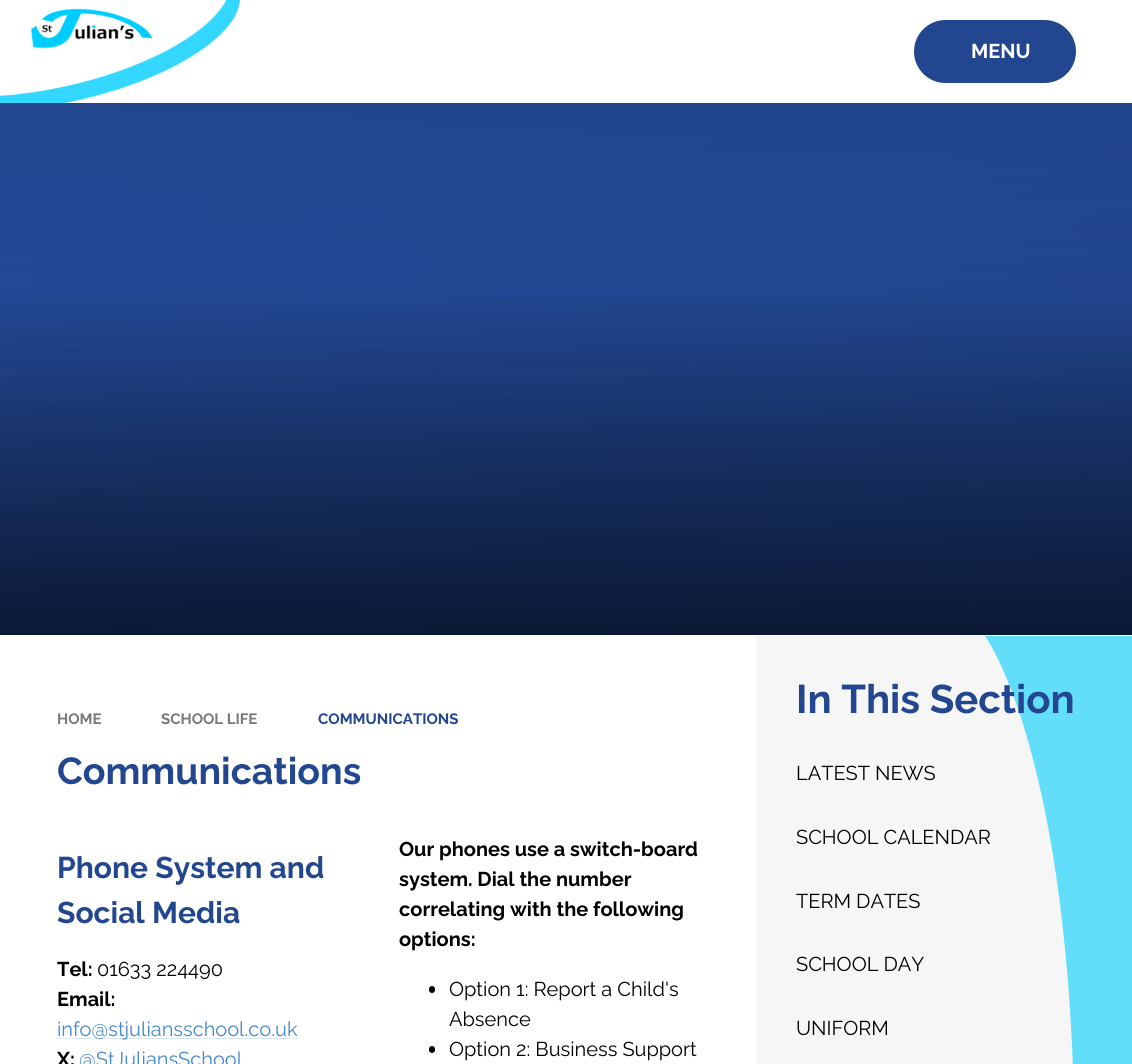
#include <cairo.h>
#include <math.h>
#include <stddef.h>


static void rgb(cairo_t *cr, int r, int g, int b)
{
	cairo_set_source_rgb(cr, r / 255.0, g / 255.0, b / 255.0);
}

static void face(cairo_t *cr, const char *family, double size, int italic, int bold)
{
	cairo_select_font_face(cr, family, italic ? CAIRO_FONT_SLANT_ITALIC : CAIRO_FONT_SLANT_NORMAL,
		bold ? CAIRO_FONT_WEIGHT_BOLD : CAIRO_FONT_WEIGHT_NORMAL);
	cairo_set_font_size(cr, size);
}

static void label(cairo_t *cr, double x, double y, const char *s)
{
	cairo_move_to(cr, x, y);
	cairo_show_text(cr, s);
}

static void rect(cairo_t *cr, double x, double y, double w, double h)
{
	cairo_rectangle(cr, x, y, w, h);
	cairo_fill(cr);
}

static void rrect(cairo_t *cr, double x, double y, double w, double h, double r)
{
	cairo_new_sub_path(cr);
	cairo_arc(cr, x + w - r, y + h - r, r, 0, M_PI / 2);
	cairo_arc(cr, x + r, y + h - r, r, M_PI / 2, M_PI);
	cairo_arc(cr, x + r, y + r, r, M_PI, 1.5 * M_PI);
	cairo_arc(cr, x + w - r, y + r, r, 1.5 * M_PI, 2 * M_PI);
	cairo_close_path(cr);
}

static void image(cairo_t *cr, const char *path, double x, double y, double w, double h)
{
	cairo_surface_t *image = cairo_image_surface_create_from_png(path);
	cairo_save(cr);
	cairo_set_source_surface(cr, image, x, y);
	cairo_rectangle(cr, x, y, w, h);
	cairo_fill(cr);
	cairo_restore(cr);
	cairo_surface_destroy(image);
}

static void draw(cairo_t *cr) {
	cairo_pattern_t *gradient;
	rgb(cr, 255, 255, 255);
	cairo_paint(cr);
	image(cr, "image0.png", 0, 0, 240, 103);
	rgb(cr, 34, 70, 144);
	rrect(cr, 914, 20, 162, 63, 31.5);
	cairo_fill(cr);
	face(cr, "Raleway", 20, 0, 1);
	rgb(cr, 255, 255, 255);
	label(cr, 971, 58, "MENU");
	gradient = cairo_pattern_create_linear(504, 14, 629, 724);
	cairo_pattern_add_color_stop_rgba(gradient, 0, 0.153, 0.314, 0.647, 1);
	cairo_pattern_add_color_stop_rgba(gradient, 1, 0.114, 0.235, 0.482, 1);
	cairo_set_source(cr, gradient);
	cairo_pattern_destroy(gradient);
	rect(cr, 0, 103, 1132, 532);
	gradient = cairo_pattern_create_linear(566, 102, 566, 449);
	cairo_pattern_add_color_stop_rgba(gradient, 0, 0.129, 0.267, 0.545, 0.89);
	cairo_pattern_add_color_stop_rgba(gradient, 1, 0.129, 0.267, 0.545, 0);
	cairo_set_source(cr, gradient);
	cairo_pattern_destroy(gradient);
	rect(cr, 0, 103, 1132, 264);
	gradient = cairo_pattern_create_linear(566, 289, 566, 635);
	cairo_pattern_add_color_stop_rgba(gradient, 0, 0.031, 0.071, 0.153, 0);
	cairo_pattern_add_color_stop_rgba(gradient, 1, 0.031, 0.071, 0.153, 0.85);
	cairo_set_source(cr, gradient);
	cairo_pattern_destroy(gradient);
	rect(cr, 0, 299, 1132, 336);
	face(cr, "Raleway", 15, 0, 1);
	rgb(cr, 121, 121, 121);
	label(cr, 57, 724, "HOME");
	label(cr, 161, 724, "SCHOOL LIFE");
	rgb(cr, 34, 70, 144);
	label(cr, 318, 724, "COMMUNICATIONS");
	face(cr, "Raleway", 37.5, 0, 1);
	label(cr, 57, 784, "Communications");
	face(cr, "Raleway", 30, 0, 1);
	label(cr, 57, 878, "Phone System and");
	label(cr, 57, 923, "Social Media");
	face(cr, "Raleway", 20, 0, 1);
	rgb(cr, 0, 0, 0);
	label(cr, 57, 976, "Tel:");
	face(cr, "Raleway", 20, 0, 0);
	label(cr, 97, 976, "01633 224490");
	face(cr, "Raleway", 20, 0, 1);
	label(cr, 57, 1006, "Email:");
	rgb(cr, 218, 231, 246);
	rect(cr, 56, 1038, 242, 1);
	face(cr, "Raleway", 20, 0, 0);
	rgb(cr, 69, 135, 208);
	label(cr, 57, 1036, "info@stjuliansschool.co.uk");
	face(cr, "Raleway", 20, 0, 1);
	rgb(cr, 0, 0, 0);
	label(cr, 57, 1066, "X:");
	face(cr, "Raleway", 20, 0, 0);
	rgb(cr, 69, 135, 208);
	label(cr, 79, 1066, "@StJuliansSchool");
	face(cr, "Raleway", 20, 0, 1);
	rgb(cr, 0, 0, 0);
	label(cr, 399, 856, "Our phones use a switch-board");
	label(cr, 399, 886, "system. Dial the number");
	label(cr, 399, 916, "correlating with the following");
	label(cr, 399, 946, "options:");
	rrect(cr, 429, 986, 6, 7, 3);
	cairo_fill(cr);
	face(cr, "Raleway", 20, 0, 0);
	label(cr, 449, 996, "Option 1: Report a Child's");
	label(cr, 449, 1026, "Absence");
	rrect(cr, 429, 1046, 6, 7, 3);
	cairo_fill(cr);
	label(cr, 449, 1056, "Option 2: Business Support");
	rgb(cr, 246, 246, 246);
	rect(cr, 756, 635, 376, 429);
	rgb(cr, 98, 222, 251);
	cairo_new_path(cr);
	cairo_move_to(cr, 985, 636);
	cairo_line_to(cr, 1132, 636);
	cairo_line_to(cr, 1132, 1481);
	cairo_line_to(cr, 840, 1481);
	cairo_curve_to(cr, 840, 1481, 1083, 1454, 1074, 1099);
	cairo_curve_to(cr, 1065, 744, 985, 636, 985, 636);
	cairo_close_path(cr);
	cairo_fill(cr);
	face(cr, "Raleway", 40, 0, 1);
	rgb(cr, 34, 70, 144);
	label(cr, 796, 713, "In This Section");
	face(cr, "Raleway", 20, 0, 0);
	rgb(cr, 0, 0, 0);
	label(cr, 796, 780, "LATEST NEWS");
	label(cr, 796, 844, "SCHOOL CALENDAR");
	label(cr, 796, 908, "TERM DATES");
	label(cr, 796, 971, "SCHOOL DAY");
	label(cr, 796, 1035, "UNIFORM");
}

int main(void) {
	cairo_surface_t *surface = cairo_image_surface_create(CAIRO_FORMAT_RGB24, 1132, 1064);
	cairo_t *cr = cairo_create(surface);
	cairo_font_options_t *options = cairo_font_options_create();
	cairo_font_options_set_hint_metrics(options, CAIRO_HINT_METRICS_OFF);
	cairo_font_options_set_hint_style(options, CAIRO_HINT_STYLE_NONE);
	cairo_set_font_options(cr, options);
	cairo_set_miter_limit(cr, 4);
	draw(cr);
	cairo_surface_write_to_png(surface, "render.png");
	cairo_font_options_destroy(options);
	cairo_destroy(cr);
	cairo_surface_destroy(surface);
	return 0;
}
